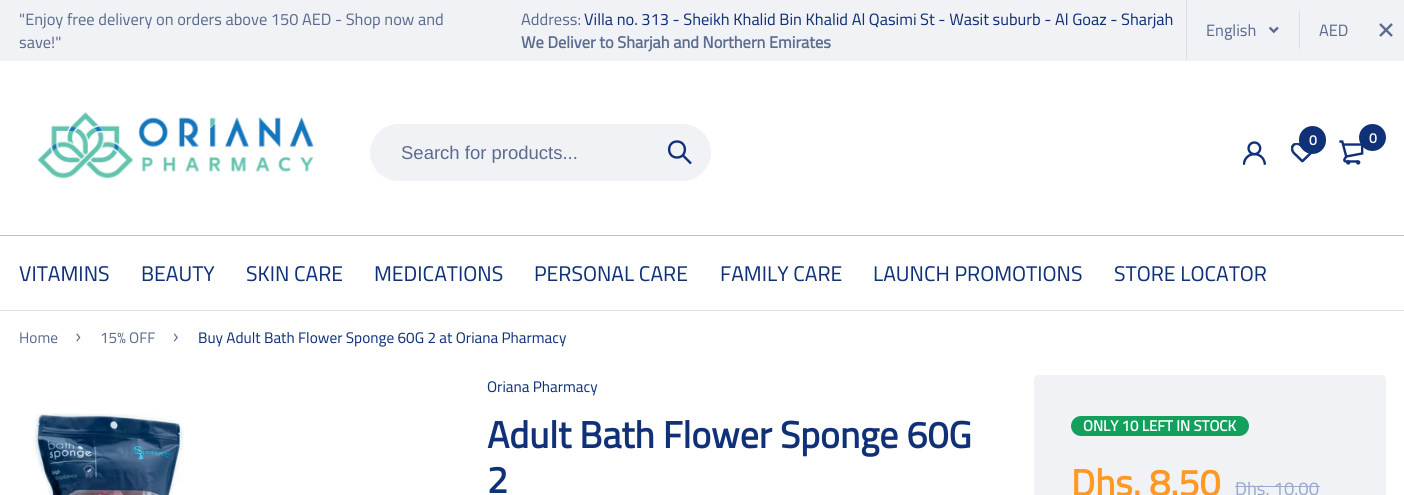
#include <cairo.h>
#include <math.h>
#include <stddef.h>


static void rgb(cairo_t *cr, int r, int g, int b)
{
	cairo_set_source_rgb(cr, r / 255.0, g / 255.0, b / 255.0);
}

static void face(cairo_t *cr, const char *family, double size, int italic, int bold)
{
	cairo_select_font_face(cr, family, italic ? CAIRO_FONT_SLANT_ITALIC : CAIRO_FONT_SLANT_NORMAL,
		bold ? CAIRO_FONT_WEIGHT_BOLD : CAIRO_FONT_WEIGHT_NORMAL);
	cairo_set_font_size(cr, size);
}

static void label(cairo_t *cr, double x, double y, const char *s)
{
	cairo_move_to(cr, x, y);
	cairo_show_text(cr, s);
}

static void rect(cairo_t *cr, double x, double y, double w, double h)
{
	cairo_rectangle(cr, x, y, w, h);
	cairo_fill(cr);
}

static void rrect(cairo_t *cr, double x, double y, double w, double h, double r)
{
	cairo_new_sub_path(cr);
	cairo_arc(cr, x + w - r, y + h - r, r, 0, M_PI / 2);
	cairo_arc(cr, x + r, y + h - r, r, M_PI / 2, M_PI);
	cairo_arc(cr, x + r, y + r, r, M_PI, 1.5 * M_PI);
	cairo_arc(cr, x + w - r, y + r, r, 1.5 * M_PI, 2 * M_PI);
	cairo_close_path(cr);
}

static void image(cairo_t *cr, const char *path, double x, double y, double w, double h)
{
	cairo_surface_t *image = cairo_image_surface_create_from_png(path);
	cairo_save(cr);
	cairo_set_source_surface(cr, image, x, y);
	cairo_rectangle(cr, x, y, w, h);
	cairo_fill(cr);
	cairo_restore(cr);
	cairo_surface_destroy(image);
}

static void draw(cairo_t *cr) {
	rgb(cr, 255, 255, 255);
	cairo_paint(cr);
	rgb(cr, 240, 242, 245);
	rect(cr, 0, 0, 1404, 61);
	face(cr, "Cairo", 16.4, 0, 0);
	rgb(cr, 91, 108, 143);
	label(cr, 19, 25, "\"Enjoy free delivery on orders above 150 AED - Shop now and");
	label(cr, 19, 48, "save!\"");
	rgb(cr, 218, 223, 233);
	rect(cr, 1186, 0, 1, 60);
	rgb(cr, 91, 108, 143);
	label(cr, 521, 25, "Address:");
	rgb(cr, 16, 49, 120);
	label(cr, 584, 25, "Villa no. 313 - Sheikh Khalid Bin Khalid Al Qasimi St - Wasit suburb - Al Goaz - Sharjah");
	face(cr, "Cairo", 16.4, 0, 1);
	rgb(cr, 91, 108, 143);
	label(cr, 521, 48, "We Deliver to Sharjah and Northern Emirates");
	rgb(cr, 218, 223, 233);
	rect(cr, 1299, 11, 1, 38);
	face(cr, "Cairo", 16.4, 0, 0);
	rgb(cr, 91, 108, 143);
	label(cr, 1206, 36, "English");
	image(cr, "image0.png", 1269, 26, 10, 8);
	label(cr, 1319, 36, "AED");
	cairo_new_path(cr);
	cairo_move_to(cr, 1392, 24);
	cairo_line_to(cr, 1380, 36);
	cairo_move_to(cr, 1380, 24);
	cairo_line_to(cr, 1392, 36);
	cairo_set_line_width(cr, 2.4);
	cairo_stroke(cr);
	image(cr, "image1.png", 37, 112, 277, 67);
	image(cr, "image2.png", 1243, 141, 23, 24);
	image(cr, "image3.png", 1291, 143, 22, 20);
	rgb(cr, 16, 49, 120);
	rrect(cr, 1299, 126, 27, 28, 13.5);
	cairo_fill(cr);
	face(cr, "Cairo", 14, 0, 1);
	rgb(cr, 255, 255, 255);
	label(cr, 1309, 145, "0");
	image(cr, "image4.png", 1339, 140, 25, 25);
	rgb(cr, 16, 49, 120);
	cairo_arc(cr, 1372.5, 137.5, 13.5, 0, 2 * M_PI);
	cairo_fill(cr);
	rgb(cr, 255, 255, 255);
	label(cr, 1369, 143, "0");
	rgb(cr, 240, 242, 245);
	rrect(cr, 370, 124, 341, 57, 28.5);
	cairo_fill(cr);
	face(cr, "Liberation Sans", 18.5, 0, 0);
	rgb(cr, 91, 108, 143);
	label(cr, 401, 159, "Search for products...");
	cairo_new_path(cr);
	cairo_move_to(cr, 677, 157.5);
	cairo_curve_to(cr, 687.5, 157.5, 687.5, 141.5, 677, 141.5);
	cairo_curve_to(cr, 666.5, 141.5, 666.5, 157.5, 677, 157.5);
	cairo_close_path(cr);
	cairo_move_to(cr, 691, 163.5);
	cairo_line_to(cr, 682.5, 155);
	rgb(cr, 16, 49, 120);
	cairo_stroke(cr);
	rgb(cr, 183, 193, 215);
	rect(cr, 0, 235, 1404, 1);
	face(cr, "Cairo", 21.25, 0, 0);
	rgb(cr, 16, 49, 120);
	label(cr, 19, 281, "VITAMINS");
	label(cr, 141, 281, "BEAUTY");
	label(cr, 246, 281, "SKIN CARE");
	label(cr, 374, 281, "MEDICATIONS");
	label(cr, 534, 281, "PERSONAL CARE");
	label(cr, 720, 281, "FAMILY CARE");
	label(cr, 873, 281, "LAUNCH PROMOTIONS");
	label(cr, 1114, 281, "STORE LOCATOR");
	rgb(cr, 219, 224, 235);
	rect(cr, 0, 310, 1404, 1);
	face(cr, "Cairo", 15.3, 0, 0);
	rgb(cr, 91, 108, 143);
	label(cr, 19, 343, "Home");
	image(cr, "image5.png", 76, 333, 5, 9);
	label(cr, 100, 343, "15% OFF");
	image(cr, "image6.png", 174, 333, 4, 9);
	rgb(cr, 16, 49, 120);
	label(cr, 198, 343, "Buy Adult Bath Flower Sponge 60G 2 at Oriana Pharmacy");
	image(cr, "image7.png", 32, 413, 153, 82);
	label(cr, 487, 392, "Oriana Pharmacy");
	face(cr, "Cairo", 37.5, 0, 1);
	label(cr, 487, 448, "Adult Bath Flower Sponge 60G");
	label(cr, 487, 493, "2");
	rgb(cr, 240, 242, 245);
	rrect(cr, 1034, 375, 352, 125, 5);
	cairo_fill(cr);
	rgb(cr, 18, 160, 92);
	rrect(cr, 1071, 416, 178, 20, 10);
	cairo_fill(cr);
	face(cr, "Cairo", 15, 0, 1);
	rgb(cr, 255, 255, 255);
	label(cr, 1083, 431, "ONLY 10 LEFT IN STOCK");
	face(cr, "Cairo", 37.5, 0, 1);
	rgb(cr, 255, 153, 35);
	label(cr, 1071, 496, "Dhs. 8.50");
	face(cr, "Cairo", 18.5, 0, 0);
	rgb(cr, 155, 171, 205);
	label(cr, 1235, 495, "Dhs. 10.00");
	rect(cr, 1235, 486, 85, 1);
}

int main(void) {
	cairo_surface_t *surface = cairo_image_surface_create(CAIRO_FORMAT_RGB24, 1404, 495);
	cairo_t *cr = cairo_create(surface);
	cairo_font_options_t *options = cairo_font_options_create();
	cairo_font_options_set_hint_metrics(options, CAIRO_HINT_METRICS_OFF);
	cairo_font_options_set_hint_style(options, CAIRO_HINT_STYLE_NONE);
	cairo_set_font_options(cr, options);
	cairo_set_miter_limit(cr, 4);
	draw(cr);
	cairo_surface_write_to_png(surface, "render.png");
	cairo_font_options_destroy(options);
	cairo_destroy(cr);
	cairo_surface_destroy(surface);
	return 0;
}
